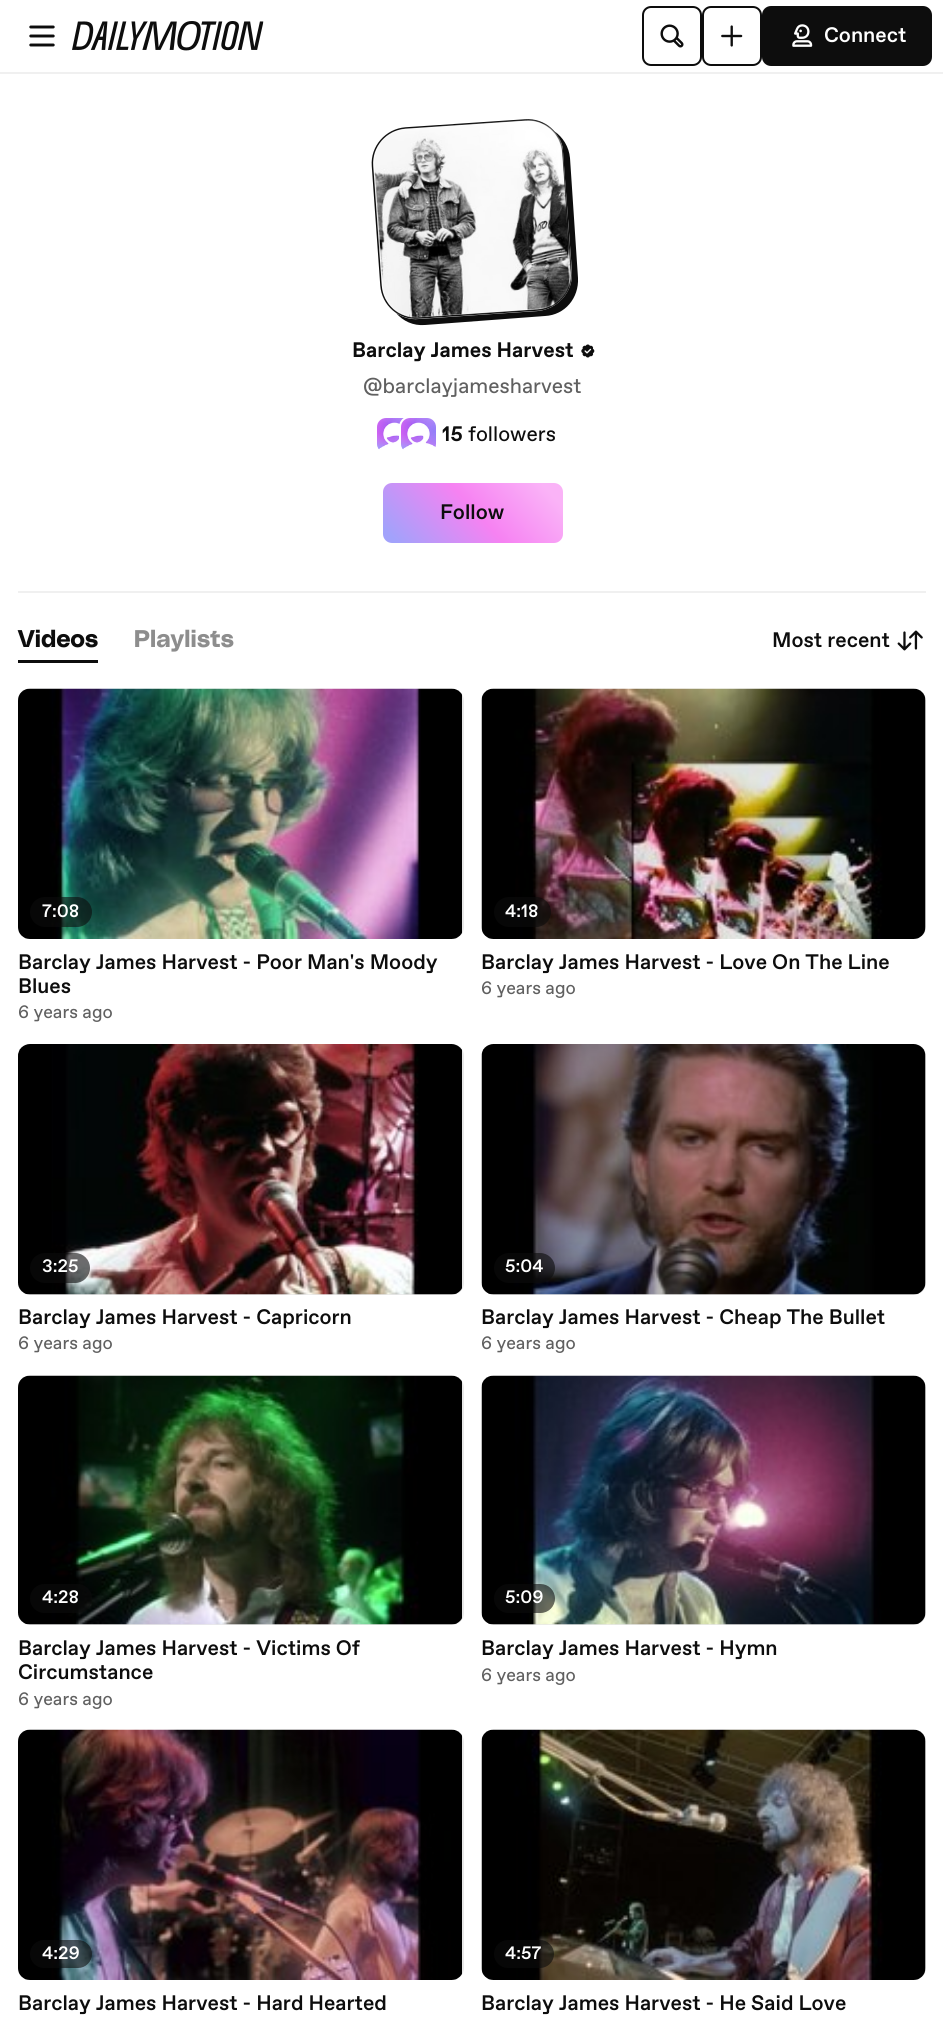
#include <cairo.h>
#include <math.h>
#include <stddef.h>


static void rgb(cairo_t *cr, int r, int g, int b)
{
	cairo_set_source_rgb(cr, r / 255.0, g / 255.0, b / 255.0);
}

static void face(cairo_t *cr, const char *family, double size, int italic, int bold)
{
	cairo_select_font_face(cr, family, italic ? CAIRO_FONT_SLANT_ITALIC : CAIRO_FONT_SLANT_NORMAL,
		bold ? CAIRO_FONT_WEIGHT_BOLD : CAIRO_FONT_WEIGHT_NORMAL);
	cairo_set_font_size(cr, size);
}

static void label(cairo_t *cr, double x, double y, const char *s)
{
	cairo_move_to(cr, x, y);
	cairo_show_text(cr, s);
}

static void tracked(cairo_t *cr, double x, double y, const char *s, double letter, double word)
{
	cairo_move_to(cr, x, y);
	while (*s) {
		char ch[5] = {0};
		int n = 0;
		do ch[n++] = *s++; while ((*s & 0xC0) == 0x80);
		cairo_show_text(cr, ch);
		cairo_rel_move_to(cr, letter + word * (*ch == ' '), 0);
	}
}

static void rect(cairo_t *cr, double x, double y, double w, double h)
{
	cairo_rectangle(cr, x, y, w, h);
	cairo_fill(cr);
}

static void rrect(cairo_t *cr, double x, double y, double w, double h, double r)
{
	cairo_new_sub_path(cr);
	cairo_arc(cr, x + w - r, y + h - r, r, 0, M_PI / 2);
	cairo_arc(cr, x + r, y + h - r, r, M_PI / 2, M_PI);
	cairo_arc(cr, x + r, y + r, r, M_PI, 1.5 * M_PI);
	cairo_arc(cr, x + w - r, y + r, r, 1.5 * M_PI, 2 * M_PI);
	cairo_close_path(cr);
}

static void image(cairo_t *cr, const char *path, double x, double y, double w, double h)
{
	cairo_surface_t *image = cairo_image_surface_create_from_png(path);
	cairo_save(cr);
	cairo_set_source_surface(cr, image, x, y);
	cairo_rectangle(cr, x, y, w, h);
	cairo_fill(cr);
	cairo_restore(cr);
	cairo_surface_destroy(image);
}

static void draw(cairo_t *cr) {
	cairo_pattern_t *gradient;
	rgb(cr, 255, 255, 255);
	cairo_paint(cr);
	rgb(cr, 240, 240, 240);
	rect(cr, 0, 72, 943, 2);
	image(cr, "image0.png", 29, 25, 26, 22);
	image(cr, "image1.png", 72, 21, 192, 30);
	rrect(cr, 643, 7, 58, 58, 8);
	rgb(cr, 13, 13, 13);
	cairo_stroke(cr);
	image(cr, "image2.png", 660, 24, 24, 24);
	rrect(cr, 703, 7, 58, 58, 8);
	cairo_stroke(cr);
	image(cr, "image3.png", 721, 25, 22, 22);
	rrect(cr, 763, 7, 168, 58, 8);
	cairo_fill_preserve(cr);
	cairo_stroke(cr);
	image(cr, "image4.png", 792, 24, 21, 23);
	face(cr, "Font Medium", 21, 0, 0);
	rgb(cr, 255, 255, 255);
	label(cr, 824, 42, "Connect");
	rgb(cr, 240, 240, 240);
	rect(cr, 18, 591, 908, 2);
	rgb(cr, 13, 13, 13);
	cairo_new_path(cr);
	cairo_move_to(cr, 396, 313);
	cairo_curve_to(cr, 403, 321, 413, 326, 425, 325);
	cairo_line_to(cr, 545, 316);
	cairo_curve_to(cr, 565, 315, 579, 298, 578, 278);
	cairo_line_to(cr, 570, 158);
	cairo_curve_to(cr, 569, 147, 563, 137, 554, 131);
	cairo_curve_to(cr, 559, 137, 563, 144, 563, 152);
	cairo_line_to(cr, 572, 272);
	cairo_curve_to(cr, 573, 292, 558, 309, 538, 311);
	cairo_line_to(cr, 419, 319);
	cairo_curve_to(cr, 410, 320, 402, 317, 396, 313);
	cairo_close_path(cr);
	cairo_fill(cr);
	cairo_new_path(cr);
	cairo_move_to(cr, 405.5, 128);
	cairo_line_to(cr, 525, 120);
	cairo_curve_to(cr, 544.5, 118.5, 561, 133, 562.5, 152.5);
	cairo_line_to(cr, 571, 272);
	cairo_curve_to(cr, 572.5, 291.5, 557.5, 308.5, 538, 310);
	cairo_line_to(cr, 418.5, 318);
	cairo_curve_to(cr, 399, 319.5, 382.5, 305, 381, 285.5);
	cairo_line_to(cr, 372.5, 166);
	cairo_curve_to(cr, 371, 146.5, 386, 129.5, 405.5, 128);
	cairo_close_path(cr);
	cairo_set_line_width(cr, 1.5);
	cairo_stroke(cr);
	image(cr, "image5.png", 373, 119, 199, 199);
	face(cr, "Font", 21, 0, 1);
	label(cr, 352, 357, "Barclay James Harvest");
	image(cr, "image6.png", 581, 344, 14, 14);
	face(cr, "Font", 21, 0, 0);
	rgb(cr, 96, 96, 96);
	label(cr, 363, 393, "@barclayjamesharvest");
	image(cr, "image7.png", 377, 417, 28, 33);
	rrect(cr, 376, 417, 37, 37, 10);
	rgb(cr, 255, 255, 255);
	cairo_set_line_width(cr, 2);
	cairo_stroke(cr);
	image(cr, "image8.png", 401, 417, 35, 33);
	rrect(cr, 400, 417, 37, 37, 10);
	cairo_stroke(cr);
	face(cr, "Font", 21, 0, 1);
	rgb(cr, 13, 13, 13);
	label(cr, 442, 441, "15");
	face(cr, "Font", 21, 0, 0);
	label(cr, 468, 441, "followers");
	gradient = cairo_pattern_create_linear(537, 455, 408, 571);
	cairo_pattern_add_color_stop_rgba(gradient, 0.09, 0.98, 0.702, 0.969, 1);
	cairo_pattern_add_color_stop_rgba(gradient, 0.48, 0.965, 0.51, 0.949, 1);
	cairo_pattern_add_color_stop_rgba(gradient, 0.94, 0.635, 0.635, 0.984, 1);
	cairo_set_source(cr, gradient);
	cairo_pattern_destroy(gradient);
	rrect(cr, 383, 483, 180, 60, 9);
	cairo_fill(cr);
	face(cr, "Font Medium", 21, 0, 0);
	rgb(cr, 13, 13, 13);
	label(cr, 440, 519, "Follow");
	cairo_new_path(cr);
	cairo_move_to(cr, 18, 660);
	cairo_line_to(cr, 18, 663);
	cairo_line_to(cr, 98, 663);
	cairo_line_to(cr, 98, 626);
	cairo_line_to(cr, 98, 660);
	cairo_close_path(cr);
	cairo_fill(cr);
	face(cr, "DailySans", 24, 0, 1);
	tracked(cr, 18, 647, "Videos", 0.25, 0);
	rgb(cr, 141, 141, 141);
	tracked(cr, 134, 647, "Playlists", 0.25, 0);
	face(cr, "Font Medium", 21, 0, 0);
	rgb(cr, 13, 13, 13);
	label(cr, 772, 647, "Most recent");
	image(cr, "image9.png", 897, 630, 26, 21);
	rgb(cr, 232, 232, 232);
	rrect(cr, 18, 689, 446, 250, 12);
	cairo_fill(cr);
	image(cr, "image10.png", 18, 688, 444, 251);
	cairo_set_source_rgba(cr, 0.051, 0.051, 0.051, 0.6);
	rrect(cr, 30, 897, 62, 30, 15);
	cairo_fill(cr);
	face(cr, "Font Medium", 18, 0, 0);
	rgb(cr, 255, 255, 255);
	label(cr, 42, 917, "7:08");
	face(cr, "Font Medium", 21, 0, 0);
	rgb(cr, 13, 13, 13);
	label(cr, 18, 969, "Barclay James Harvest - Poor Man's Moody");
	label(cr, 18, 993, "Blues");
	face(cr, "Font", 18, 0, 0);
	rgb(cr, 96, 96, 96);
	label(cr, 18, 1018, "6 years ago");
	rgb(cr, 232, 232, 232);
	rrect(cr, 482, 689, 444, 250, 12);
	cairo_fill(cr);
	image(cr, "image11.png", 481, 688, 445, 251);
	cairo_set_source_rgba(cr, 0.051, 0.051, 0.051, 0.6);
	rrect(cr, 494, 897, 57, 30, 15);
	cairo_fill(cr);
	face(cr, "Font Medium", 18, 0, 0);
	rgb(cr, 255, 255, 255);
	label(cr, 505, 917, "4:18");
	face(cr, "Font Medium", 21, 0, 0);
	rgb(cr, 13, 13, 13);
	label(cr, 481, 969, "Barclay James Harvest - Love On The Line");
	cairo_save(cr);
	cairo_rectangle(cr, 482, 975, 432, 27);
	cairo_clip(cr);
	face(cr, "Font", 18, 0, 0);
	rgb(cr, 96, 96, 96);
	label(cr, 481, 994, "6 years ago");
	cairo_restore(cr);
	rgb(cr, 232, 232, 232);
	rrect(cr, 18, 1044, 446, 251, 12);
	cairo_fill(cr);
	image(cr, "image12.png", 18, 1044, 444, 251);
	cairo_set_source_rgba(cr, 0.051, 0.051, 0.051, 0.6);
	rrect(cr, 30, 1253, 60, 30, 15);
	cairo_fill(cr);
	face(cr, "Font Medium", 18, 0, 0);
	rgb(cr, 255, 255, 255);
	label(cr, 42, 1272, "3:25");
	face(cr, "Font Medium", 21, 0, 0);
	rgb(cr, 13, 13, 13);
	label(cr, 18, 1324, "Barclay James Harvest - Capricorn");
	face(cr, "Font", 18, 0, 0);
	rgb(cr, 96, 96, 96);
	label(cr, 18, 1349, "6 years ago");
	rgb(cr, 232, 232, 232);
	rrect(cr, 482, 1044, 444, 251, 12);
	cairo_fill(cr);
	image(cr, "image13.png", 481, 1044, 445, 251);
	cairo_set_source_rgba(cr, 0.051, 0.051, 0.051, 0.6);
	rrect(cr, 494, 1253, 61, 30, 15);
	cairo_fill(cr);
	face(cr, "Font Medium", 18, 0, 0);
	rgb(cr, 255, 255, 255);
	label(cr, 505, 1272, "5:04");
	face(cr, "Font Medium", 21, 0, 0);
	rgb(cr, 13, 13, 13);
	label(cr, 481, 1324, "Barclay James Harvest - Cheap The Bullet");
	cairo_save(cr);
	cairo_rectangle(cr, 482, 1331, 432, 27);
	cairo_clip(cr);
	face(cr, "Font", 18, 0, 0);
	rgb(cr, 96, 96, 96);
	label(cr, 481, 1349, "6 years ago");
	cairo_restore(cr);
	rgb(cr, 232, 232, 232);
	rrect(cr, 18, 1376, 446, 249, 12);
	cairo_fill(cr);
	image(cr, "image14.png", 18, 1375, 444, 250);
	cairo_set_source_rgba(cr, 0.051, 0.051, 0.051, 0.6);
	rrect(cr, 30, 1584, 62, 29, 14.5);
	cairo_fill(cr);
	face(cr, "Font Medium", 18, 0, 0);
	rgb(cr, 255, 255, 255);
	label(cr, 42, 1603, "4:28");
	face(cr, "Font Medium", 21, 0, 0);
	rgb(cr, 13, 13, 13);
	label(cr, 18, 1655, "Barclay James Harvest - Victims Of");
	label(cr, 18, 1679, "Circumstance");
	face(cr, "Font", 18, 0, 0);
	rgb(cr, 96, 96, 96);
	label(cr, 18, 1705, "6 years ago");
	rgb(cr, 232, 232, 232);
	rrect(cr, 482, 1376, 444, 249, 12);
	cairo_fill(cr);
	image(cr, "image15.png", 481, 1375, 445, 250);
	cairo_set_source_rgba(cr, 0.051, 0.051, 0.051, 0.6);
	rrect(cr, 494, 1584, 61, 29, 14.5);
	cairo_fill(cr);
	face(cr, "Font Medium", 18, 0, 0);
	rgb(cr, 255, 255, 255);
	label(cr, 505, 1603, "5:09");
	face(cr, "Font Medium", 21, 0, 0);
	rgb(cr, 13, 13, 13);
	label(cr, 481, 1655, "Barclay James Harvest - Hymn");
	cairo_save(cr);
	cairo_rectangle(cr, 482, 1661, 432, 27);
	cairo_clip(cr);
	face(cr, "Font", 18, 0, 0);
	rgb(cr, 96, 96, 96);
	label(cr, 481, 1681, "6 years ago");
	cairo_restore(cr);
	rgb(cr, 232, 232, 232);
	rrect(cr, 18, 1730, 446, 250, 12);
	cairo_fill(cr);
	image(cr, "image16.png", 18, 1729, 444, 251);
	cairo_set_source_rgba(cr, 0.051, 0.051, 0.051, 0.6);
	rrect(cr, 30, 1940, 62, 28, 14);
	cairo_fill(cr);
	face(cr, "Font Medium", 18, 0, 0);
	rgb(cr, 255, 255, 255);
	label(cr, 42, 1959, "4:29");
	face(cr, "Font Medium", 21, 0, 0);
	rgb(cr, 13, 13, 13);
	label(cr, 18, 2010, "Barclay James Harvest - Hard Hearted");
	rgb(cr, 232, 232, 232);
	rrect(cr, 482, 1730, 444, 250, 12);
	cairo_fill(cr);
	image(cr, "image17.png", 481, 1729, 445, 251);
	cairo_set_source_rgba(cr, 0.051, 0.051, 0.051, 0.6);
	rrect(cr, 494, 1940, 60, 28, 14);
	cairo_fill(cr);
	face(cr, "Font Medium", 18, 0, 0);
	rgb(cr, 255, 255, 255);
	label(cr, 505, 1959, "4:57");
	face(cr, "Font Medium", 21, 0, 0);
	rgb(cr, 13, 13, 13);
	label(cr, 481, 2010, "Barclay James Harvest - He Said Love");
}

int main(void) {
	cairo_surface_t *surface = cairo_image_surface_create(CAIRO_FORMAT_RGB24, 943, 2025);
	cairo_t *cr = cairo_create(surface);
	cairo_font_options_t *options = cairo_font_options_create();
	cairo_font_options_set_hint_metrics(options, CAIRO_HINT_METRICS_OFF);
	cairo_font_options_set_hint_style(options, CAIRO_HINT_STYLE_NONE);
	cairo_set_font_options(cr, options);
	cairo_set_miter_limit(cr, 4);
	draw(cr);
	cairo_surface_write_to_png(surface, "render.png");
	cairo_font_options_destroy(options);
	cairo_destroy(cr);
	cairo_surface_destroy(surface);
	return 0;
}
